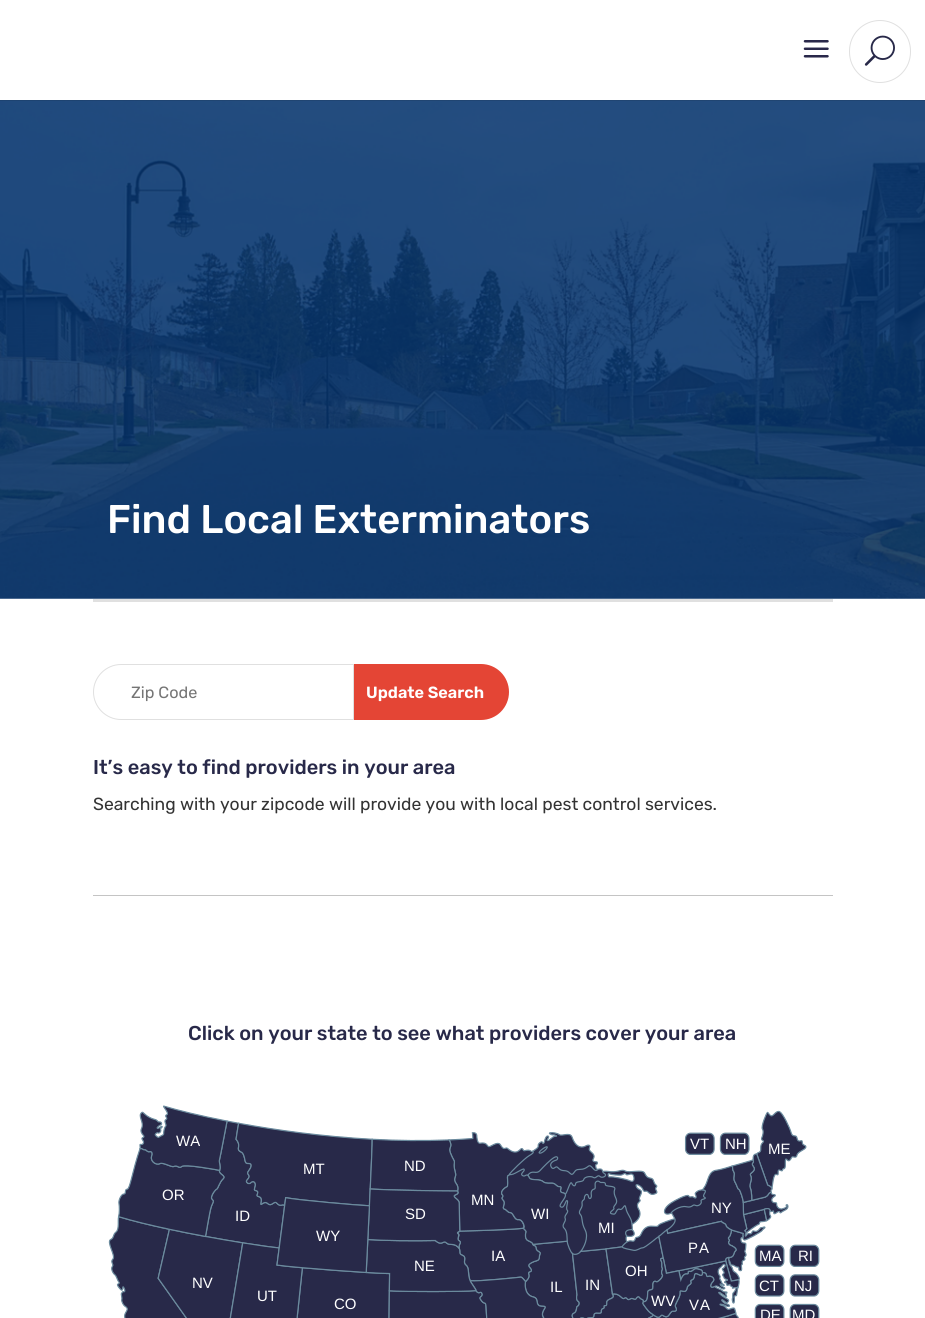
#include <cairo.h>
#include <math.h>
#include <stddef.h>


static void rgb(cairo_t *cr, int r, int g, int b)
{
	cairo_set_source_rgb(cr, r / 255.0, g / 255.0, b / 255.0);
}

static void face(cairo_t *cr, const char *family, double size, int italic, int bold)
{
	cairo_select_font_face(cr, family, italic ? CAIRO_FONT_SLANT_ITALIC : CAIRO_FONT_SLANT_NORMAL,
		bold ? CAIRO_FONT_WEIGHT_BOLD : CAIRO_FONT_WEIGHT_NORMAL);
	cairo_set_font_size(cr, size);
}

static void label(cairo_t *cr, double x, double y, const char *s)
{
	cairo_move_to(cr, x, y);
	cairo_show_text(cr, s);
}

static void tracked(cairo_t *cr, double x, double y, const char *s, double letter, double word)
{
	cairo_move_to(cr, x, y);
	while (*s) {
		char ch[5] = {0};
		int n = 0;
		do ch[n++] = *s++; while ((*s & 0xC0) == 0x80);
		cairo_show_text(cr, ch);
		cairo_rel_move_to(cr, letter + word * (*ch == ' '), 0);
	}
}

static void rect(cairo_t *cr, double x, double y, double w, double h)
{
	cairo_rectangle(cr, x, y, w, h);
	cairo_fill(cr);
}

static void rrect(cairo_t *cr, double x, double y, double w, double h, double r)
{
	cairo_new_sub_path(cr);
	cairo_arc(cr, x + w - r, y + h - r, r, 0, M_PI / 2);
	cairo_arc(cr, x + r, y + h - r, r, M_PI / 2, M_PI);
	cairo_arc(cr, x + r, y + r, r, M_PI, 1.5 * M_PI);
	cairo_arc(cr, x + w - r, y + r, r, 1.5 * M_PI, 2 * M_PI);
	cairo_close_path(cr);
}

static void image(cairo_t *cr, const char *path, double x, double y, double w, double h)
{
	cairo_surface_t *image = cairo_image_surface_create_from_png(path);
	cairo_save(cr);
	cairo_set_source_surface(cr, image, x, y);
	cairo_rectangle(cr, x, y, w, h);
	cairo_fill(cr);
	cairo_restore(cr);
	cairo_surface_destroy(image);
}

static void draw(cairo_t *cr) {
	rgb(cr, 255, 255, 255);
	cairo_paint(cr);
	image(cr, "image2.png", 0, 100, 925, 499);
	cairo_set_source_rgba(cr, 0, 0, 0, 0.1);
	rect(cr, 0, 100, 925, 1);
	image(cr, "image0.png", 803, 40, 26, 18);
	rrect(cr, 849.5, 20.5, 61, 62, 30.5);
	rgb(cr, 224, 224, 224);
	cairo_set_line_width(cr, 1);
	cairo_stroke(cr);
	image(cr, "image1.png", 864, 35, 31, 31);
	face(cr, "Rubik Medium", 40, 0, 0);
	rgb(cr, 255, 255, 255);
	label(cr, 107, 533, "Find Local Exterminators");
	rgb(cr, 224, 224, 224);
	rect(cr, 93, 599, 740, 3);
	cairo_new_path(cr);
	cairo_move_to(cr, 121, 664.5);
	cairo_line_to(cr, 353.5, 664.5);
	cairo_line_to(cr, 353.5, 719.5);
	cairo_line_to(cr, 121, 719.5);
	cairo_curve_to(cr, 106, 719.5, 93.5, 707, 93.5, 692);
	cairo_curve_to(cr, 93.5, 677, 106, 664.5, 121, 664.5);
	cairo_close_path(cr);
	cairo_stroke(cr);
	face(cr, "Rubik", 16.25, 0, 0);
	rgb(cr, 117, 117, 117);
	label(cr, 131, 698, "Zip Code");
	rgb(cr, 228, 69, 53);
	cairo_new_path(cr);
	cairo_move_to(cr, 354, 664);
	cairo_line_to(cr, 481, 664);
	cairo_curve_to(cr, 496.5, 664, 509, 676.5, 509, 692);
	cairo_curve_to(cr, 509, 707.5, 496.5, 720, 481, 720);
	cairo_line_to(cr, 354, 720);
	cairo_close_path(cr);
	cairo_fill(cr);
	face(cr, "Rubik SemiBold", 16.25, 0, 0);
	rgb(cr, 255, 255, 255);
	label(cr, 366, 698, "Update Search");
	face(cr, "Rubik Medium", 20, 0, 0);
	rgb(cr, 40, 41, 73);
	label(cr, 93, 774, "It’s easy to find providers in your area");
	face(cr, "Rubik", 17.5, 0, 0);
	rgb(cr, 51, 51, 51);
	label(cr, 93, 810, "Searching with your zipcode will provide you with local pest control services.");
	rgb(cr, 196, 196, 196);
	rect(cr, 93, 895, 740, 1);
	face(cr, "Rubik Medium", 20, 0, 0);
	rgb(cr, 40, 41, 73);
	label(cr, 188, 1040, "Click on your state to see what providers cover your area");
	image(cr, "image3.png", 108, 1105, 712, 213);
	face(cr, "Liberation Sans", 15, 0, 0);
	rgb(cr, 255, 255, 255);
	label(cr, 176, 1146, "WA");
	label(cr, 690, 1149, "VT");
	label(cr, 725, 1149, "NH");
	label(cr, 768, 1154, "ME");
	label(cr, 303, 1174, "MT");
	label(cr, 404, 1171, "ND");
	label(cr, 162, 1200, "OR");
	label(cr, 471, 1205, "MN");
	label(cr, 235, 1221, "ID");
	label(cr, 405, 1219, "SD");
	label(cr, 531, 1219, "WI");
	label(cr, 711, 1213, "NY");
	label(cr, 598, 1233, "MI");
	label(cr, 316, 1241, "WY");
	tracked(cr, 688, 1253, "PA", 1, 0);
	label(cr, 491, 1261, "IA");
	label(cr, 759, 1261, "MA");
	label(cr, 798, 1261, "RI");
	label(cr, 414, 1271, "NE");
	label(cr, 625, 1276, "OH");
	label(cr, 192, 1288, "NV");
	label(cr, 550, 1292, "IL");
	label(cr, 585, 1290, "IN");
	label(cr, 759, 1291, "CT");
	label(cr, 794, 1291, "NJ");
	label(cr, 257, 1301, "UT");
	label(cr, 334, 1309, "CO");
	label(cr, 651, 1306, "WV");
	tracked(cr, 689, 1310, "VA", 1, 0);
	label(cr, 760, 1320, "DE");
	label(cr, 792, 1320, "MD");
}

int main(void) {
	cairo_surface_t *surface = cairo_image_surface_create(CAIRO_FORMAT_RGB24, 925, 1318);
	cairo_t *cr = cairo_create(surface);
	cairo_font_options_t *options = cairo_font_options_create();
	cairo_font_options_set_hint_metrics(options, CAIRO_HINT_METRICS_OFF);
	cairo_font_options_set_hint_style(options, CAIRO_HINT_STYLE_NONE);
	cairo_set_font_options(cr, options);
	cairo_set_miter_limit(cr, 4);
	draw(cr);
	cairo_surface_write_to_png(surface, "render.png");
	cairo_font_options_destroy(options);
	cairo_destroy(cr);
	cairo_surface_destroy(surface);
	return 0;
}
